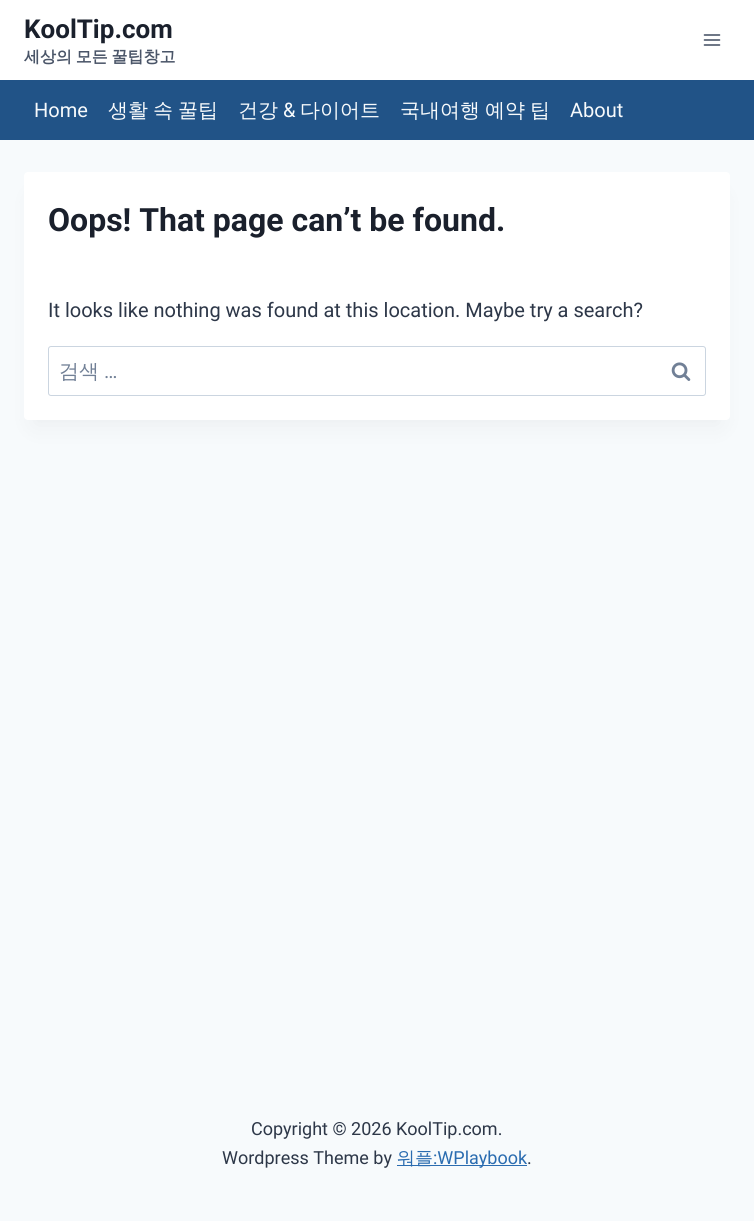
#include <cairo.h>
#include <math.h>
#include <stddef.h>


static void rgb(cairo_t *cr, int r, int g, int b)
{
	cairo_set_source_rgb(cr, r / 255.0, g / 255.0, b / 255.0);
}

static void face(cairo_t *cr, const char *family, double size, int italic, int bold)
{
	cairo_select_font_face(cr, family, italic ? CAIRO_FONT_SLANT_ITALIC : CAIRO_FONT_SLANT_NORMAL,
		bold ? CAIRO_FONT_WEIGHT_BOLD : CAIRO_FONT_WEIGHT_NORMAL);
	cairo_set_font_size(cr, size);
}

static void label(cairo_t *cr, double x, double y, const char *s)
{
	cairo_move_to(cr, x, y);
	cairo_show_text(cr, s);
}

static void tracked(cairo_t *cr, double x, double y, const char *s, double letter, double word)
{
	cairo_move_to(cr, x, y);
	while (*s) {
		char ch[5] = {0};
		int n = 0;
		do ch[n++] = *s++; while ((*s & 0xC0) == 0x80);
		cairo_show_text(cr, ch);
		cairo_rel_move_to(cr, letter + word * (*ch == ' '), 0);
	}
}

static void rect(cairo_t *cr, double x, double y, double w, double h)
{
	cairo_rectangle(cr, x, y, w, h);
	cairo_fill(cr);
}

static void rrect(cairo_t *cr, double x, double y, double w, double h, double r)
{
	cairo_new_sub_path(cr);
	cairo_arc(cr, x + w - r, y + h - r, r, 0, M_PI / 2);
	cairo_arc(cr, x + r, y + h - r, r, M_PI / 2, M_PI);
	cairo_arc(cr, x + r, y + r, r, M_PI, 1.5 * M_PI);
	cairo_arc(cr, x + w - r, y + r, r, 1.5 * M_PI, 2 * M_PI);
	cairo_close_path(cr);
}

static void soft_shadow(cairo_t *cr, double x, double y, double w, double h, double r, double blur, double alpha)
{
	cairo_push_group_with_content(cr, CAIRO_CONTENT_ALPHA);
	cairo_set_operator(cr, CAIRO_OPERATOR_SOURCE);
	for (int i = 15; i >= -15 && fmin(w, h) + blur * i / 3 > 0; i -= 2) {
		double e = blur * i / 6;
		cairo_set_source_rgba(cr, 0, 0, 0, alpha * erfc((i - 1) / 8.5) / 2);
		rrect(cr, x - e, y - e, w + 2 * e, h + 2 * e, fmax(0, fmin(r + e + blur * .6, fmin(w, h) / 2 + e)));
		cairo_fill(cr);
	}
	cairo_pattern_t *soft = cairo_pop_group(cr);
	cairo_mask(cr, soft);
	cairo_pattern_destroy(soft);
}

static void image(cairo_t *cr, const char *path, double x, double y, double w, double h)
{
	cairo_surface_t *image = cairo_image_surface_create_from_png(path);
	cairo_save(cr);
	cairo_set_source_surface(cr, image, x, y);
	cairo_rectangle(cr, x, y, w, h);
	cairo_fill(cr);
	cairo_restore(cr);
	cairo_surface_destroy(image);
}

static void draw(cairo_t *cr) {
	rgb(cr, 247, 250, 252);
	cairo_paint(cr);
	rgb(cr, 255, 255, 255);
	rect(cr, 0, 0, 754, 80);
	face(cr, "Roboto", 26, 0, 1);
	rgb(cr, 26, 32, 44);
	label(cr, 24, 38, "KoolTip.com");
	face(cr, "WenQuanYi Zen Hei", 16, 0, 1);
	rgb(cr, 74, 85, 104);
	tracked(cr, 24, 62, "세상의 모든 꿀팁창고", 0, -1);
	image(cr, "image0.png", 703, 34, 18, 12);
	rgb(cr, 33, 83, 135);
	rect(cr, 0, 80, 754, 60);
	face(cr, "Roboto", 20, 0, 0);
	rgb(cr, 247, 250, 252);
	label(cr, 34, 117, "Home");
	face(cr, "WenQuanYi Zen Hei Medium", 20, 0, 0);
	tracked(cr, 108, 117, "생활 속 꿀팁", 0, -1);
	label(cr, 238, 117, "건강");
	face(cr, "Roboto", 20, 0, 0);
	label(cr, 283, 117, "&");
	face(cr, "WenQuanYi Zen Hei Medium", 20, 0, 0);
	label(cr, 300, 117, "다이어트");
	tracked(cr, 400, 117, "국내여행 예약 팁", 0, -1);
	face(cr, "Roboto", 20, 0, 0);
	label(cr, 570, 117, "About");
	rgb(cr, 0, 0, 0);
	soft_shadow(cr, 34, 197, 686, 228, 0, 12.5, 0.05);
	rgb(cr, 255, 255, 255);
	rrect(cr, 24, 172, 706, 248, 4);
	cairo_fill(cr);
	face(cr, "Roboto", 32, 0, 1);
	rgb(cr, 26, 32, 44);
	label(cr, 48, 231, "Oops! That page can’t be found.");
	face(cr, "Roboto", 20, 0, 0);
	rgb(cr, 45, 55, 72);
	label(cr, 48, 317, "It looks like nothing was found at this location. Maybe try a search?");
	rrect(cr, 48.5, 346.5, 657, 49, 2.5);
	rgb(cr, 203, 213, 224);
	cairo_set_line_width(cr, 1);
	cairo_stroke(cr);
	face(cr, "WenQuanYi Zen Hei Medium", 20, 0, 0);
	rgb(cr, 113, 128, 150);
	label(cr, 59, 378, "검색");
	face(cr, "Roboto", 20, 0, 0);
	label(cr, 104, 378, "…");
	image(cr, "image1.png", 671, 362, 20, 19);
	face(cr, "Roboto", 18, 0, 0);
	rgb(cr, 45, 55, 72);
	label(cr, 251, 1135, "Copyright © 2026 KoolTip.com.");
	label(cr, 222, 1164, "Wordpress Theme by");
	rgb(cr, 43, 108, 176);
	rect(cr, 397, 1165, 130, 1);
	face(cr, "WenQuanYi Zen Hei Medium", 18, 0, 0);
	label(cr, 397, 1164, "워플");
	face(cr, "Roboto", 18, 0, 0);
	label(cr, 433, 1164, ":WPlaybook");
	rgb(cr, 45, 55, 72);
	label(cr, 527, 1164, ".");
}

int main(void) {
	cairo_surface_t *surface = cairo_image_surface_create(CAIRO_FORMAT_RGB24, 754, 1221);
	cairo_t *cr = cairo_create(surface);
	cairo_font_options_t *options = cairo_font_options_create();
	cairo_font_options_set_hint_metrics(options, CAIRO_HINT_METRICS_OFF);
	cairo_font_options_set_hint_style(options, CAIRO_HINT_STYLE_NONE);
	cairo_set_font_options(cr, options);
	cairo_set_miter_limit(cr, 4);
	draw(cr);
	cairo_surface_write_to_png(surface, "render.png");
	cairo_font_options_destroy(options);
	cairo_destroy(cr);
	cairo_surface_destroy(surface);
	return 0;
}
